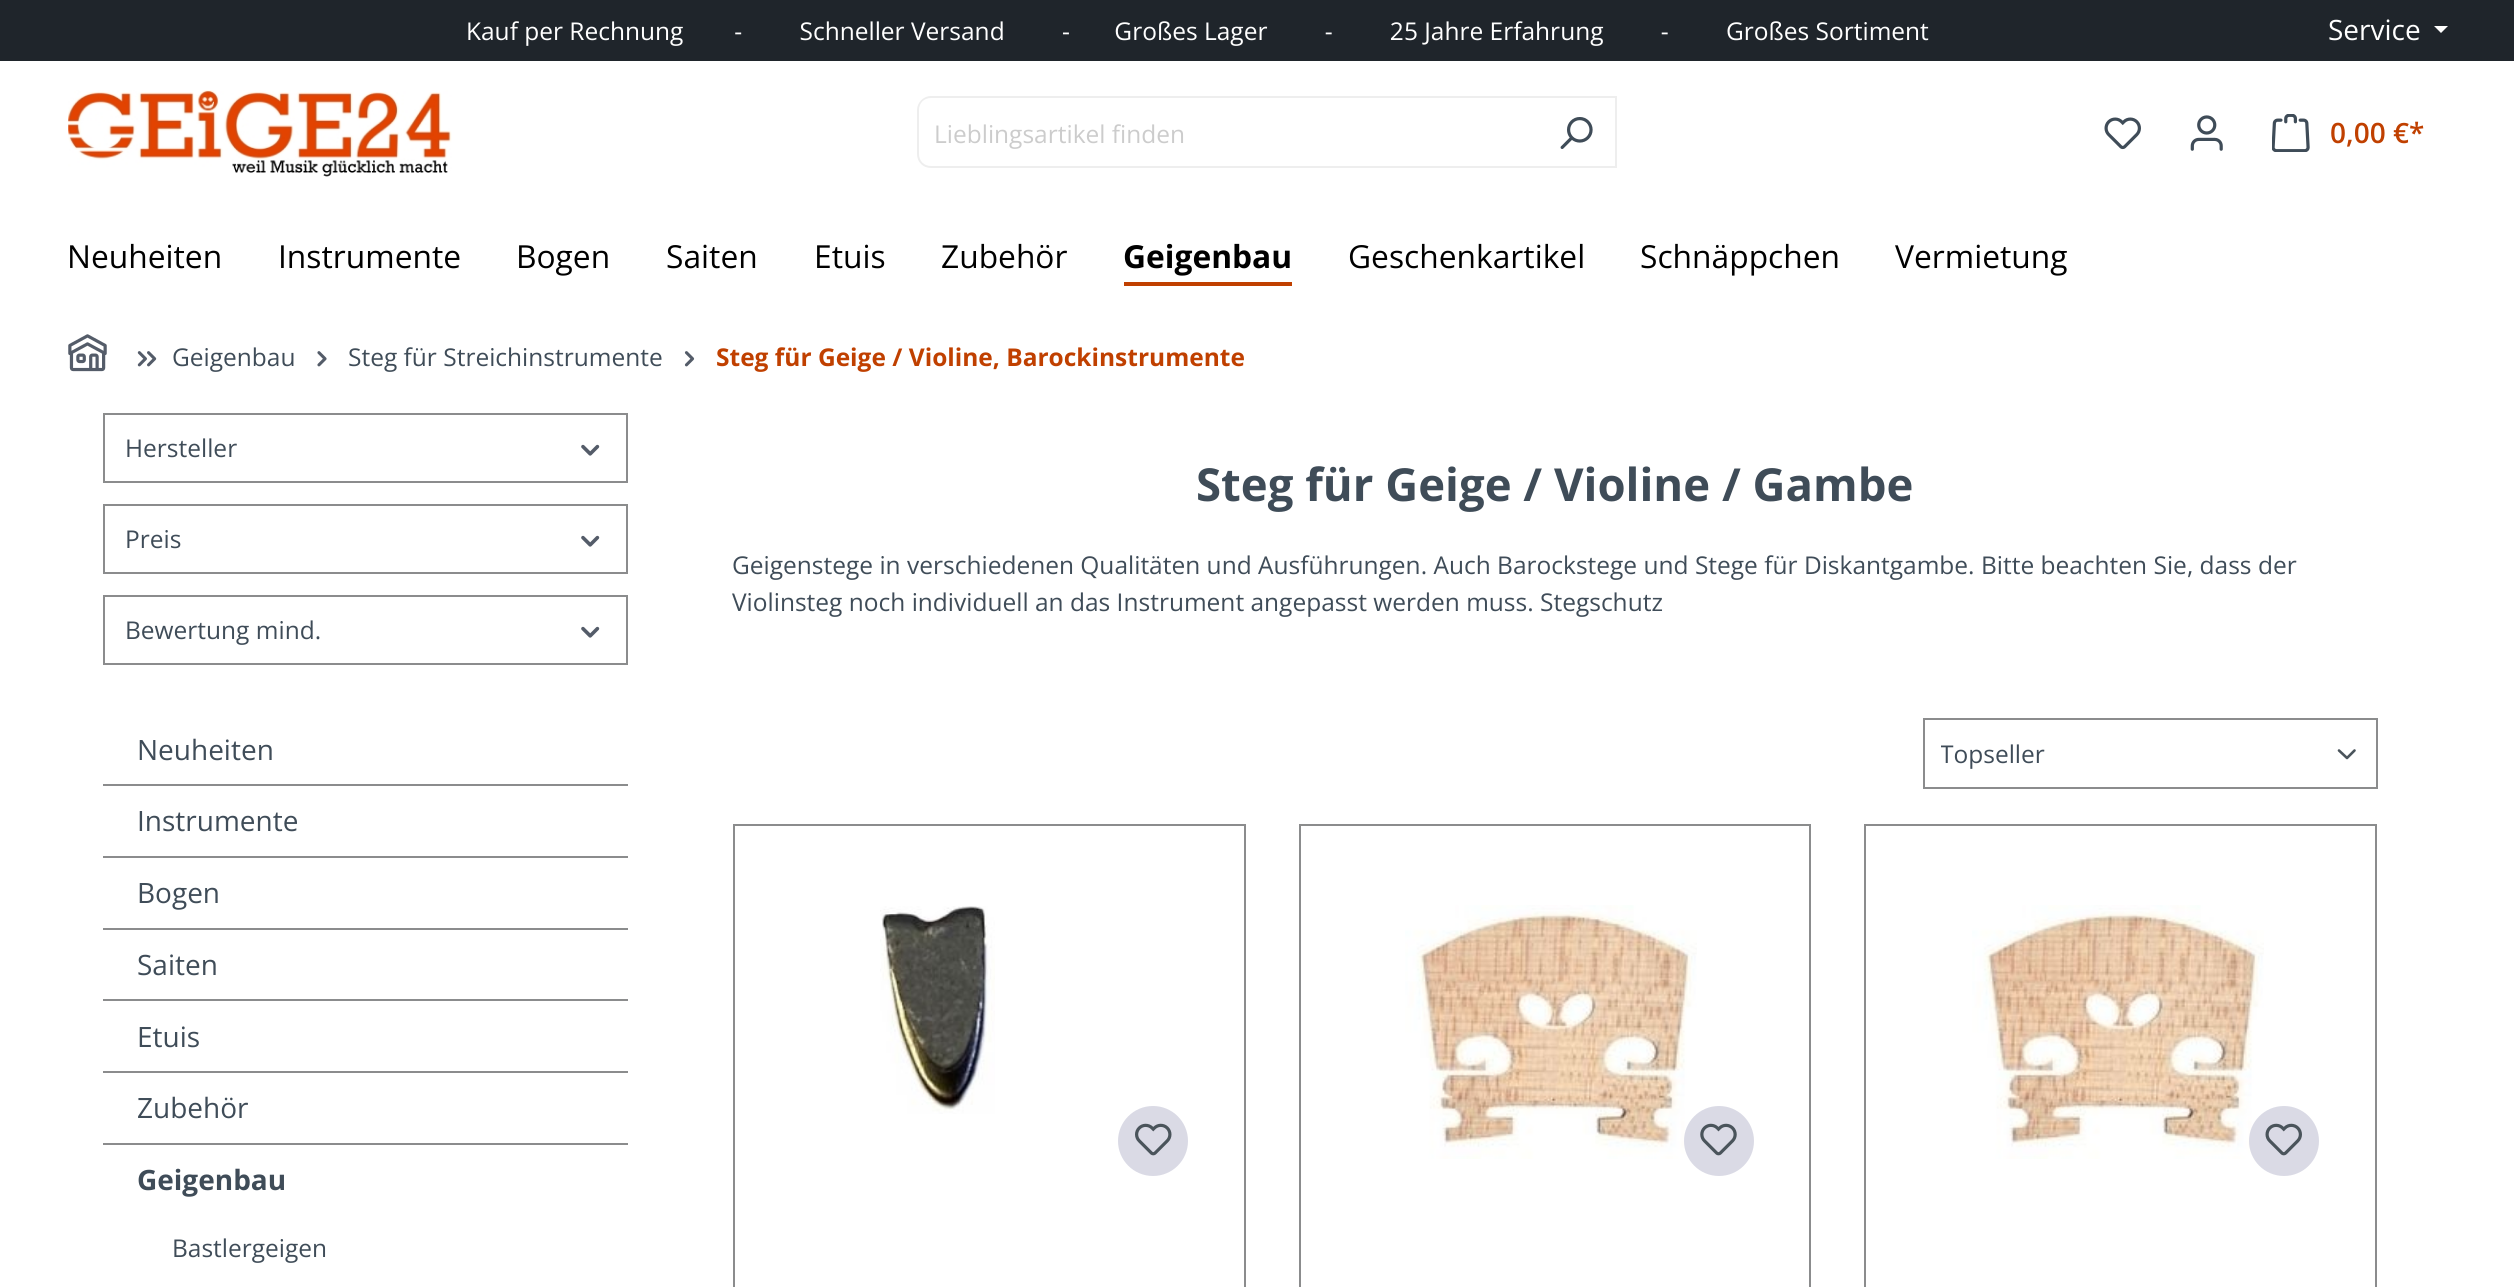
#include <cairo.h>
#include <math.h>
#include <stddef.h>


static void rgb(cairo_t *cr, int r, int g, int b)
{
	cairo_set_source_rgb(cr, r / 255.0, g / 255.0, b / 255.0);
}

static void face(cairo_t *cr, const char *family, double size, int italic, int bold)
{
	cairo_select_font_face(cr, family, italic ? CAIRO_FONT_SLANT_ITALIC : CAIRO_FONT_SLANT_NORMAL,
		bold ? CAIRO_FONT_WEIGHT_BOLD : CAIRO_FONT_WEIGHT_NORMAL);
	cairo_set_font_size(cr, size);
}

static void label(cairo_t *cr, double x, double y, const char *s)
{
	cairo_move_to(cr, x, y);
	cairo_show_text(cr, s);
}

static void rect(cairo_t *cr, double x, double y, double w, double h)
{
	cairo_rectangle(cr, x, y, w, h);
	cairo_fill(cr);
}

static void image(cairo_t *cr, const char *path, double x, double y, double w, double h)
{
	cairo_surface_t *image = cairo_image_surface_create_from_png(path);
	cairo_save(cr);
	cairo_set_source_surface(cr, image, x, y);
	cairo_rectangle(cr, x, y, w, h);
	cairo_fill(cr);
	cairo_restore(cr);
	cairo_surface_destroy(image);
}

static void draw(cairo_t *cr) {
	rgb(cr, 255, 255, 255);
	cairo_paint(cr);
	rgb(cr, 31, 37, 43);
	rect(cr, 0, 0, 2514, 61);
	face(cr, "Open Sans", 24.5, 0, 0);
	rgb(cr, 255, 255, 255);
	label(cr, 466, 40, "Kauf per Rechnung        -         Schneller Versand         -       Großes Lager         -         25 Jahre Erfahrung         -         Großes Sortiment");
	face(cr, "Open Sans", 28, 0, 0);
	label(cr, 2328, 40, "Service");
	cairo_new_path(cr);
	cairo_move_to(cr, 2434, 26);
	cairo_line_to(cr, 2448, 26);
	cairo_line_to(cr, 2441, 33);
	cairo_close_path(cr);
	cairo_fill(cr);
	image(cr, "image0.png", 68, 90, 384, 87);
	rgb(cr, 238, 238, 238);
	cairo_set_fill_rule(cr, CAIRO_FILL_RULE_EVEN_ODD);
	cairo_new_path(cr);
	cairo_move_to(cr, 931, 96);
	cairo_line_to(cr, 1536, 96);
	cairo_line_to(cr, 1536, 168);
	cairo_line_to(cr, 931, 168);
	cairo_curve_to(cr, 923, 168, 917, 162, 917, 154);
	cairo_line_to(cr, 917, 110);
	cairo_curve_to(cr, 917, 103, 923, 96, 931, 96);
	cairo_close_path(cr);
	cairo_move_to(cr, 931, 98);
	cairo_line_to(cr, 1536, 98);
	cairo_line_to(cr, 1536, 166);
	cairo_line_to(cr, 931, 166);
	cairo_curve_to(cr, 924, 166, 919, 161, 919, 154);
	cairo_line_to(cr, 919, 110);
	cairo_curve_to(cr, 919, 103, 924, 98, 931, 98);
	cairo_close_path(cr);
	cairo_fill(cr);
	face(cr, "Open Sans", 24.5, 0, 0);
	rgb(cr, 204, 204, 204);
	label(cr, 934, 143, "Lieblingsartikel finden");
	rgb(cr, 238, 238, 238);
	rect(cr, 1535, 96, 82, 2);
	rect(cr, 1615, 96, 2, 72);
	rect(cr, 1535, 166, 82, 2);
	image(cr, "image1.png", 1560, 117, 33, 32);
	image(cr, "image2.png", 2104, 117, 37, 33);
	image(cr, "image3.png", 2190, 115, 33, 36);
	image(cr, "image4.png", 2272, 114, 38, 38);
	face(cr, "Open Sans SemiBold", 28, 0, 0);
	rgb(cr, 192, 64, 0);
	label(cr, 2330, 143, "0,00 €*");
	face(cr, "Open Sans", 31.75, 0, 0);
	rgb(cr, 0, 0, 0);
	label(cr, 67, 268, "Neuheiten");
	label(cr, 278, 268, "Instrumente");
	label(cr, 516, 268, "Bogen");
	label(cr, 666, 268, "Saiten");
	label(cr, 814, 268, "Etuis");
	label(cr, 941, 268, "Zubehör");
	face(cr, "Open Sans", 31.75, 0, 1);
	label(cr, 1123, 268, "Geigenbau");
	rgb(cr, 192, 64, 0);
	rect(cr, 1124, 282, 168, 4);
	face(cr, "Open Sans", 31.75, 0, 0);
	rgb(cr, 0, 0, 0);
	label(cr, 1348, 268, "Geschenkartikel");
	label(cr, 1640, 268, "Schnäppchen");
	label(cr, 1895, 268, "Vermietung");
	image(cr, "image5.png", 68, 334, 39, 38);
	image(cr, "image6.png", 137, 351, 20, 16);
	face(cr, "Open Sans", 24.5, 0, 0);
	rgb(cr, 63, 76, 88);
	label(cr, 172, 366, "Geigenbau");
	image(cr, "image7.png", 317, 351, 10, 16);
	label(cr, 348, 366, "Steg für Streichinstrumente");
	image(cr, "image8.png", 684, 351, 11, 16);
	face(cr, "Open Sans", 24.5, 0, 1);
	rgb(cr, 192, 64, 0);
	label(cr, 716, 366, "Steg für Geige / Violine, Barockinstrumente");
	cairo_rectangle(cr, 104, 414, 523, 68);
	rgb(cr, 139, 140, 141);
	cairo_stroke(cr);
	face(cr, "Open Sans", 24.5, 0, 0);
	rgb(cr, 63, 76, 88);
	label(cr, 125, 457, "Hersteller");
	image(cr, "image9.png", 581, 444, 19, 12);
	cairo_rectangle(cr, 104, 505, 523, 68);
	rgb(cr, 139, 140, 141);
	cairo_stroke(cr);
	rgb(cr, 63, 76, 88);
	label(cr, 125, 548, "Preis");
	image(cr, "image9.png", 581, 535, 19, 12);
	cairo_rectangle(cr, 104, 596, 523, 68);
	rgb(cr, 139, 140, 141);
	cairo_stroke(cr);
	rgb(cr, 63, 76, 88);
	label(cr, 125, 639, "Bewertung mind.");
	image(cr, "image9.png", 581, 626, 19, 12);
	rgb(cr, 139, 140, 141);
	rect(cr, 103, 784, 525, 2);
	face(cr, "Open Sans", 28, 0, 0);
	rgb(cr, 63, 76, 88);
	label(cr, 137, 760, "Neuheiten");
	rgb(cr, 139, 140, 141);
	rect(cr, 103, 856, 525, 2);
	rgb(cr, 63, 76, 88);
	label(cr, 137, 831, "Instrumente");
	rgb(cr, 139, 140, 141);
	rect(cr, 103, 928, 525, 2);
	rgb(cr, 63, 76, 88);
	label(cr, 137, 903, "Bogen");
	rgb(cr, 139, 140, 141);
	rect(cr, 103, 999, 525, 2);
	rgb(cr, 63, 76, 88);
	label(cr, 137, 975, "Saiten");
	rgb(cr, 139, 140, 141);
	rect(cr, 103, 1071, 525, 2);
	rgb(cr, 63, 76, 88);
	label(cr, 137, 1047, "Etuis");
	rgb(cr, 139, 140, 141);
	rect(cr, 103, 1143, 525, 2);
	rgb(cr, 63, 76, 88);
	label(cr, 137, 1118, "Zubehör");
	face(cr, "Open Sans", 28, 0, 1);
	label(cr, 137, 1190, "Geigenbau");
	face(cr, "Open Sans", 24.5, 0, 0);
	label(cr, 172, 1257, "Bastlergeigen");
	face(cr, "Open Sans", 45.5, 0, 1);
	label(cr, 1196, 501, "Steg für Geige / Violine / Gambe");
	face(cr, "Open Sans", 24.5, 0, 0);
	label(cr, 732, 574, "Geigenstege in verschiedenen Qualitäten und Ausführungen. Auch Barockstege und Stege für Diskantgambe. Bitte beachten Sie, dass der");
	label(cr, 732, 611, "Violinsteg noch individuell an das Instrument angepasst werden muss. Stegschutz");
	cairo_new_path(cr);
	cairo_move_to(cr, 2339, 750.5);
	cairo_line_to(cr, 2347, 758);
	cairo_line_to(cr, 2354.5, 750.5);
	rgb(cr, 74, 84, 91);
	cairo_set_line_width(cr, 2.6);
	cairo_set_line_cap(cr, CAIRO_LINE_CAP_ROUND);
	cairo_set_line_join(cr, CAIRO_LINE_JOIN_ROUND);
	cairo_stroke(cr);
	cairo_rectangle(cr, 1924, 719, 453, 69);
	rgb(cr, 139, 140, 141);
	cairo_set_line_width(cr, 2);
	cairo_set_line_cap(cr, CAIRO_LINE_CAP_BUTT);
	cairo_set_line_join(cr, CAIRO_LINE_JOIN_MITER);
	cairo_stroke(cr);
	cairo_save(cr);
	cairo_set_fill_rule(cr, CAIRO_FILL_RULE_WINDING);
	cairo_rectangle(cr, 1941, 735, 388, 37);
	cairo_clip(cr);
	rgb(cr, 63, 76, 88);
	label(cr, 1940, 763, "Topseller");
	cairo_restore(cr);
	cairo_rectangle(cr, 734, 825, 511, 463);
	cairo_stroke(cr);
	image(cr, "image10.png", 880, 906, 115, 208);
	rgb(cr, 218, 218, 229);
	cairo_arc(cr, 1153, 1141, 35, 0, 2 * M_PI);
	cairo_fill(cr);
	image(cr, "image11.png", 1135, 1123, 37, 33);
	cairo_rectangle(cr, 1300, 825, 510, 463);
	rgb(cr, 139, 140, 141);
	cairo_stroke(cr);
	image(cr, "image12.png", 1405, 905, 292, 254);
	rgb(cr, 218, 218, 229);
	cairo_arc(cr, 1719, 1141, 35, 0, 2 * M_PI);
	cairo_fill(cr);
	image(cr, "image13.png", 1700, 1123, 37, 33);
	cairo_rectangle(cr, 1865, 825, 511, 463);
	rgb(cr, 139, 140, 141);
	cairo_stroke(cr);
	image(cr, "image12.png", 1972, 905, 292, 254);
	rgb(cr, 218, 218, 229);
	cairo_arc(cr, 2284, 1141, 35, 0, 2 * M_PI);
	cairo_fill(cr);
	image(cr, "image14.png", 2265, 1123, 37, 33);
}

int main(void) {
	cairo_surface_t *surface = cairo_image_surface_create(CAIRO_FORMAT_RGB24, 2514, 1287);
	cairo_t *cr = cairo_create(surface);
	cairo_font_options_t *options = cairo_font_options_create();
	cairo_font_options_set_hint_metrics(options, CAIRO_HINT_METRICS_OFF);
	cairo_font_options_set_hint_style(options, CAIRO_HINT_STYLE_NONE);
	cairo_set_font_options(cr, options);
	cairo_set_miter_limit(cr, 4);
	draw(cr);
	cairo_surface_write_to_png(surface, "render.png");
	cairo_font_options_destroy(options);
	cairo_destroy(cr);
	cairo_surface_destroy(surface);
	return 0;
}
